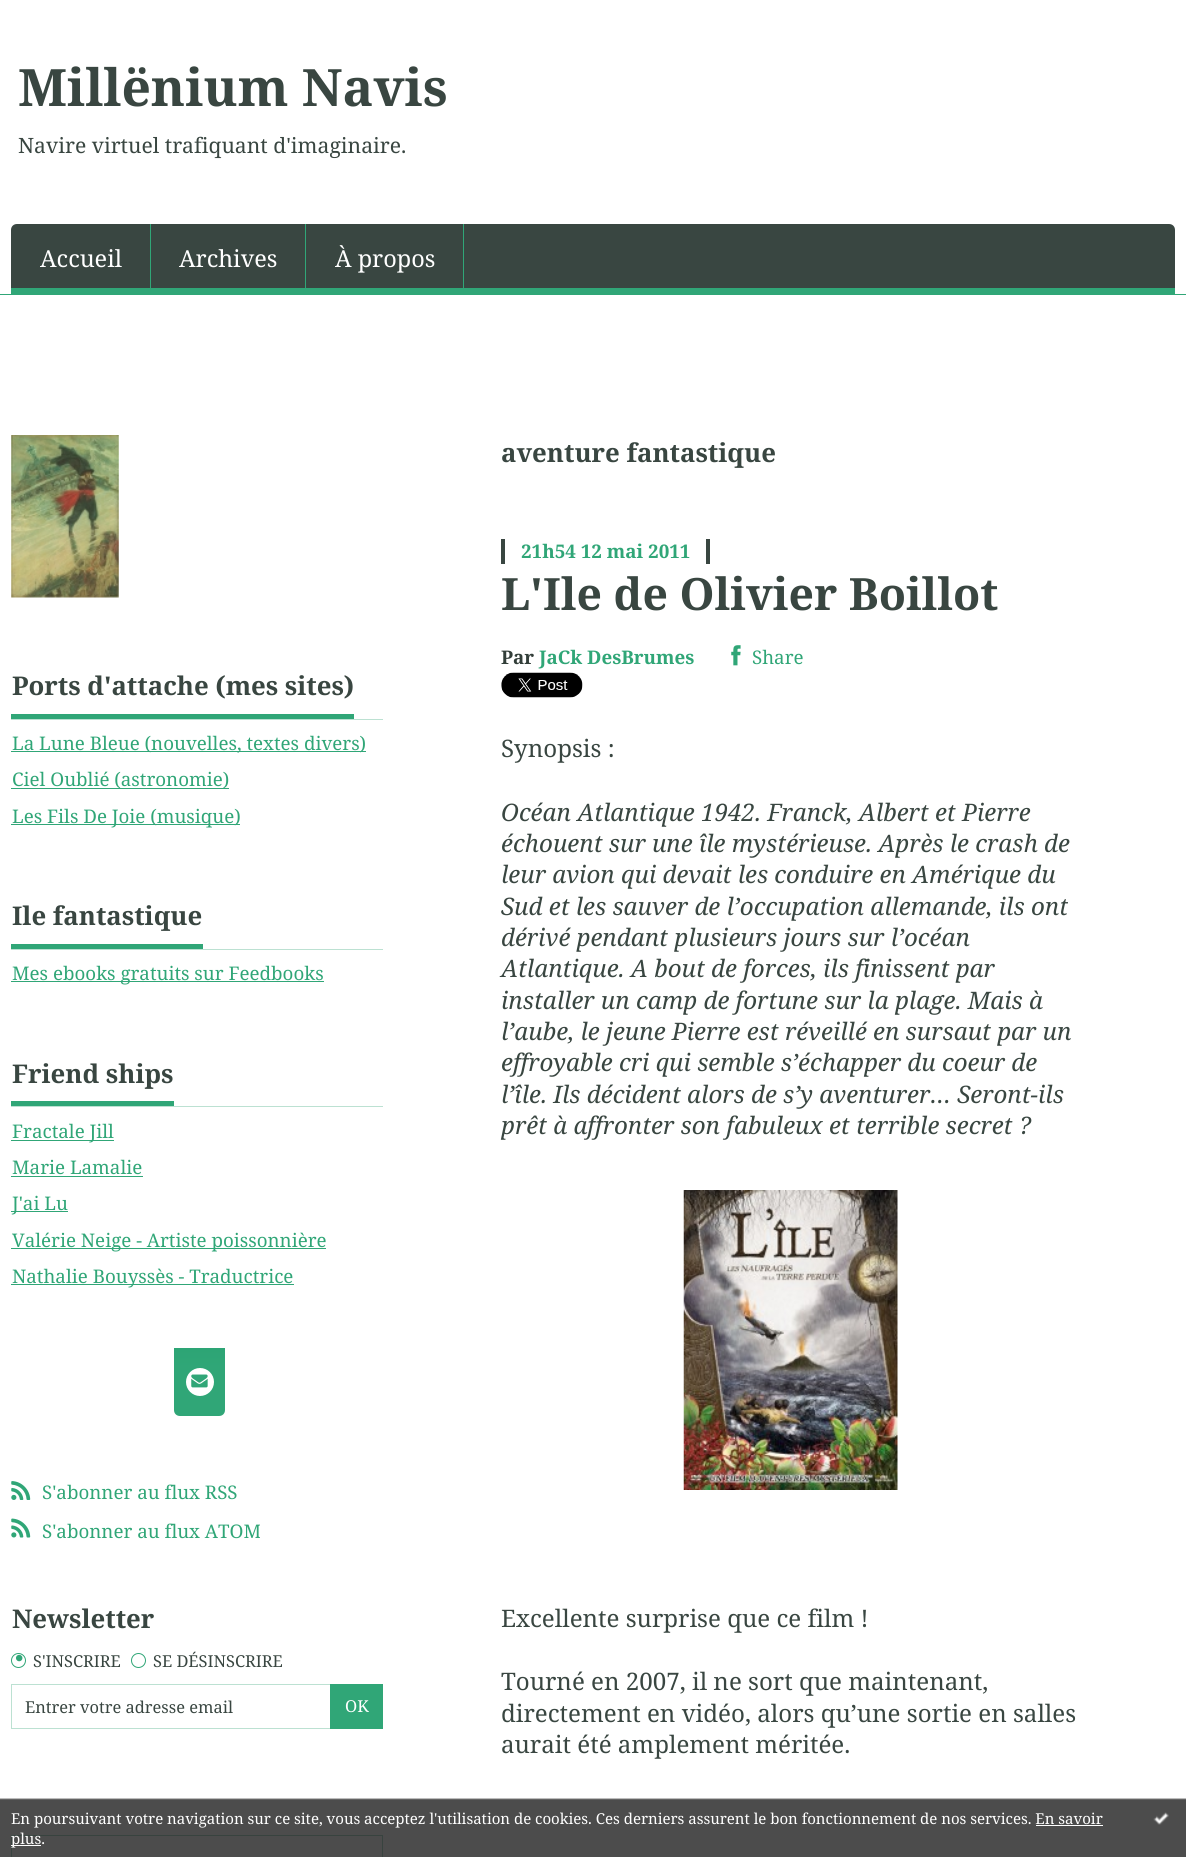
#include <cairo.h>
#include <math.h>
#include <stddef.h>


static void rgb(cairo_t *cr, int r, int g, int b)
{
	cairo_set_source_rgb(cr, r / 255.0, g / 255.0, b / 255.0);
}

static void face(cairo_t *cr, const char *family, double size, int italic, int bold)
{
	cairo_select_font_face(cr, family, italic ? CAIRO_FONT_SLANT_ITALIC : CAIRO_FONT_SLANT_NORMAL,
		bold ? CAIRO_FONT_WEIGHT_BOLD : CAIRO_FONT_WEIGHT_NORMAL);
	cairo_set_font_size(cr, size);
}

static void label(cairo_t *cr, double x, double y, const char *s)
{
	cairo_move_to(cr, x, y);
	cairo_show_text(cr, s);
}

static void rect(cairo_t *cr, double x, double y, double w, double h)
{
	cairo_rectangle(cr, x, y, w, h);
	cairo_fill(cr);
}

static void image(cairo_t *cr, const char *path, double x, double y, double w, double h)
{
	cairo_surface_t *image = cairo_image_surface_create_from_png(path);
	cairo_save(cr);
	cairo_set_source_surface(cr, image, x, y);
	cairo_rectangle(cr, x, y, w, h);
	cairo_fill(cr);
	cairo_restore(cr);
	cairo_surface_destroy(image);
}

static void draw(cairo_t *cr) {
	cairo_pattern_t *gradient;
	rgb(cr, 255, 255, 255);
	cairo_paint(cr);
	rgb(cr, 48, 166, 119);
	rect(cr, 0, 294, 1186, 1);
	face(cr, "Noto Serif", 51.5, 0, 1);
	rgb(cr, 57, 70, 65);
	label(cr, 18, 106, "Millënium Navis");
	face(cr, "Noto Serif", 21.1, 0, 0);
	label(cr, 18, 153, "Navire virtuel trafiquant d'imaginaire.");
	cairo_new_path(cr);
	cairo_move_to(cr, 17, 224);
	cairo_line_to(cr, 1169, 224);
	cairo_curve_to(cr, 1172.5, 224, 1175, 226.5, 1175, 230);
	cairo_line_to(cr, 1175, 294);
	cairo_line_to(cr, 11, 294);
	cairo_line_to(cr, 11, 230);
	cairo_curve_to(cr, 11, 226.5, 13.5, 224, 17, 224);
	cairo_close_path(cr);
	cairo_fill(cr);
	rgb(cr, 48, 166, 119);
	rect(cr, 11, 288, 1164, 6);
	rect(cr, 150, 224, 1, 64);
	face(cr, "Noto Serif", 23.5, 0, 0);
	rgb(cr, 255, 255, 255);
	label(cr, 40, 267, "Accueil");
	rgb(cr, 48, 166, 119);
	rect(cr, 305, 224, 1, 64);
	rgb(cr, 255, 255, 255);
	label(cr, 179, 267, "Archives");
	rgb(cr, 48, 166, 119);
	rect(cr, 463, 224, 1, 64);
	rgb(cr, 255, 255, 255);
	label(cr, 335, 267, "À propos");
	image(cr, "image0.png", 11, 435, 108, 163);
	rgb(cr, 188, 225, 210);
	rect(cr, 11, 719, 372, 1);
	rgb(cr, 48, 166, 119);
	rect(cr, 11, 714, 343, 5);
	face(cr, "Noto Serif", 25.75, 0, 1);
	rgb(cr, 57, 70, 65);
	label(cr, 12, 695, "Ports d'attache (mes sites)");
	rgb(cr, 48, 166, 119);
	rect(cr, 11, 751, 355, 1);
	face(cr, "Noto Serif", 18.75, 0, 0);
	label(cr, 12, 750, "La Lune Bleue (nouvelles, textes divers)");
	rect(cr, 11, 788, 218, 1);
	label(cr, 12, 786, "Ciel Oublié (astronomie)");
	rect(cr, 11, 824, 229, 1);
	label(cr, 12, 823, "Les Fils De Joie (musique)");
	rgb(cr, 188, 225, 210);
	rect(cr, 11, 949, 372, 1);
	rgb(cr, 48, 166, 119);
	rect(cr, 11, 944, 192, 5);
	face(cr, "Noto Serif", 25.75, 0, 1);
	rgb(cr, 57, 70, 65);
	label(cr, 12, 925, "Ile fantastique");
	rgb(cr, 48, 166, 119);
	rect(cr, 11, 981, 313, 1);
	face(cr, "Noto Serif", 18.75, 0, 0);
	label(cr, 12, 980, "Mes ebooks gratuits sur Feedbooks");
	rgb(cr, 188, 225, 210);
	rect(cr, 11, 1106, 372, 1);
	rgb(cr, 48, 166, 119);
	rect(cr, 11, 1101, 163, 5);
	face(cr, "Noto Serif", 25.75, 0, 1);
	rgb(cr, 57, 70, 65);
	label(cr, 12, 1083, "Friend ships");
	rgb(cr, 48, 166, 119);
	rect(cr, 11, 1140, 103, 1);
	face(cr, "Noto Serif", 18.75, 0, 0);
	label(cr, 12, 1138, "Fractale Jill");
	label(cr, 12, 1174, "Marie Lamalie");
	rect(cr, 11, 1176, 132, 1);
	rect(cr, 11, 1211, 57, 1);
	label(cr, 12, 1210, "J'ai Lu");
	rect(cr, 11, 1248, 315, 1);
	label(cr, 12, 1247, "Valérie Neige - Artiste poissonnière");
	rect(cr, 11, 1284, 283, 1);
	label(cr, 12, 1283, "Nathalie Bouyssès - Traductrice");
	gradient = cairo_pattern_create_linear(199, 1348, 199, 1416);
	cairo_pattern_add_color_stop_rgba(gradient, 0, 0.176, 0.647, 0.459, 1);
	cairo_pattern_add_color_stop_rgba(gradient, 0.3, 0.188, 0.651, 0.467, 1);
	cairo_set_source(cr, gradient);
	cairo_pattern_destroy(gradient);
	cairo_new_path(cr);
	cairo_move_to(cr, 174, 1348);
	cairo_line_to(cr, 225, 1348);
	cairo_line_to(cr, 225, 1410);
	cairo_curve_to(cr, 225, 1413.5, 222.5, 1416, 219, 1416);
	cairo_line_to(cr, 180, 1416);
	cairo_curve_to(cr, 176.5, 1416, 174, 1413.5, 174, 1410);
	cairo_close_path(cr);
	cairo_fill(cr);
	rgb(cr, 255, 255, 255);
	cairo_arc(cr, 200, 1382, 14, 0, 2 * M_PI);
	cairo_fill(cr);
	image(cr, "image1.png", 191, 1374, 17, 14);
	image(cr, "image2.png", 11, 1481, 20, 19);
	rgb(cr, 48, 166, 119);
	label(cr, 42, 1499, "S'abonner au flux RSS");
	image(cr, "image3.png", 11, 1518, 20, 20);
	label(cr, 42, 1538, "S'abonner au flux ATOM");
	face(cr, "Noto Serif", 25.75, 0, 1);
	rgb(cr, 57, 70, 65);
	label(cr, 12, 1628, "Newsletter");
	cairo_new_path(cr);
	cairo_arc(cr, 18.5, 1660.5, 7, 0, 2 * M_PI);
	rgb(cr, 48, 166, 119);
	cairo_set_line_width(cr, 1);
	cairo_stroke(cr);
	face(cr, "Liberation Sans", 24, 0, 0);
	label(cr, 15, 1666, "•");
	face(cr, "Noto Serif", 16.4, 0, 0);
	rgb(cr, 57, 70, 65);
	label(cr, 33, 1667, "S'INSCRIRE");
	cairo_new_path(cr);
	cairo_arc(cr, 138.5, 1660.5, 7, 0, 2 * M_PI);
	rgb(cr, 48, 166, 119);
	cairo_stroke(cr);
	rgb(cr, 57, 70, 65);
	label(cr, 153, 1667, "SE DÉSINSCRIRE");
	cairo_rectangle(cr, 11.5, 1684.5, 371, 44);
	rgb(cr, 188, 225, 210);
	cairo_stroke(cr);
	rgb(cr, 57, 70, 65);
	label(cr, 25, 1713, "Entrer votre adresse email");
	rgb(cr, 48, 166, 119);
	rect(cr, 330, 1684, 53, 45);
	rgb(cr, 255, 255, 255);
	label(cr, 345, 1712, "OK");
	cairo_rectangle(cr, 11.5, 1835.5, 371, 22);
	rgb(cr, 188, 225, 210);
	cairo_stroke(cr);
	face(cr, "Noto Serif", 25.75, 0, 1);
	rgb(cr, 57, 70, 65);
	label(cr, 501, 462, "aventure fantastique");
	face(cr, "Noto Serif", 18.75, 0, 1);
	rgb(cr, 48, 166, 119);
	label(cr, 521, 558, "21h54 12 mai 2011");
	rgb(cr, 57, 70, 65);
	rect(cr, 501, 539, 4, 25);
	rect(cr, 706, 539, 4, 25);
	face(cr, "Noto Serif", 44.5, 0, 1);
	label(cr, 501, 610, "L'Ile de Olivier Boillot");
	face(cr, "Noto Serif", 18.75, 0, 1);
	rgb(cr, 50, 62, 57);
	label(cr, 501, 664, "Par");
	rgb(cr, 48, 166, 119);
	label(cr, 539, 664, "JaCk DesBrumes");
	image(cr, "image4.png", 731, 645, 10, 21);
	face(cr, "Noto Serif", 18.75, 0, 0);
	label(cr, 752, 664, "Share");
	image(cr, "image5.png", 501, 672, 82, 26);
	face(cr, "Noto Serif", 24.1, 0, 0);
	rgb(cr, 57, 70, 65);
	label(cr, 501, 757, "Synopsis :");
	face(cr, "Noto Serif", 24.1, 1, 0);
	label(cr, 501, 821, "Océan Atlantique 1942. Franck, Albert et Pierre");
	label(cr, 501, 852, "échouent sur une île mystérieuse. Après le crash de");
	label(cr, 501, 883, "leur avion qui devait les conduire en Amérique du");
	label(cr, 501, 915, "Sud et les sauver de l’occupation allemande, ils ont");
	label(cr, 501, 946, "dérivé pendant plusieurs jours sur l’océan");
	label(cr, 501, 977, "Atlantique. A bout de forces, ils finissent par");
	label(cr, 501, 1009, "installer un camp de fortune sur la plage. Mais à");
	label(cr, 501, 1040, "l’aube, le jeune Pierre est réveillé en sursaut par un");
	label(cr, 501, 1071, "effroyable cri qui semble s’échapper du coeur de");
	label(cr, 501, 1103, "l’île. Ils décident alors de s’y aventurer… Seront-ils");
	label(cr, 501, 1134, "prêt à affronter son fabuleux et terrible secret ?");
	image(cr, "image6.png", 683, 1190, 215, 300);
	face(cr, "Noto Serif", 24.1, 0, 0);
	label(cr, 501, 1627, "Excellente surprise que ce film !");
	label(cr, 501, 1690, "Tourné en 2007, il ne sort que maintenant,");
	label(cr, 501, 1722, "directement en vidéo, alors qu’une sortie en salles");
	label(cr, 501, 1753, "aurait été amplement méritée.");
	image(cr, "image7.png", 0, 1798, 1186, 59);
	face(cr, "Noto Serif", 15, 0, 0);
	rgb(cr, 255, 255, 255);
	label(cr, 11, 1824, "En poursuivant votre navigation sur ce site, vous acceptez l'utilisation de cookies. Ces derniers assurent le bon fonctionnement de nos services. En savoir");
	rect(cr, 11, 1845, 30, 1);
	label(cr, 11, 1844, "plus.");
	rect(cr, 1036, 1825, 67, 1);
	image(cr, "image8.png", 1153, 1812, 16, 13);
}

int main(void) {
	cairo_surface_t *surface = cairo_image_surface_create(CAIRO_FORMAT_RGB24, 1186, 1857);
	cairo_t *cr = cairo_create(surface);
	cairo_font_options_t *options = cairo_font_options_create();
	cairo_font_options_set_hint_metrics(options, CAIRO_HINT_METRICS_OFF);
	cairo_font_options_set_hint_style(options, CAIRO_HINT_STYLE_NONE);
	cairo_set_font_options(cr, options);
	cairo_set_miter_limit(cr, 4);
	draw(cr);
	cairo_surface_write_to_png(surface, "render.png");
	cairo_font_options_destroy(options);
	cairo_destroy(cr);
	cairo_surface_destroy(surface);
	return 0;
}
